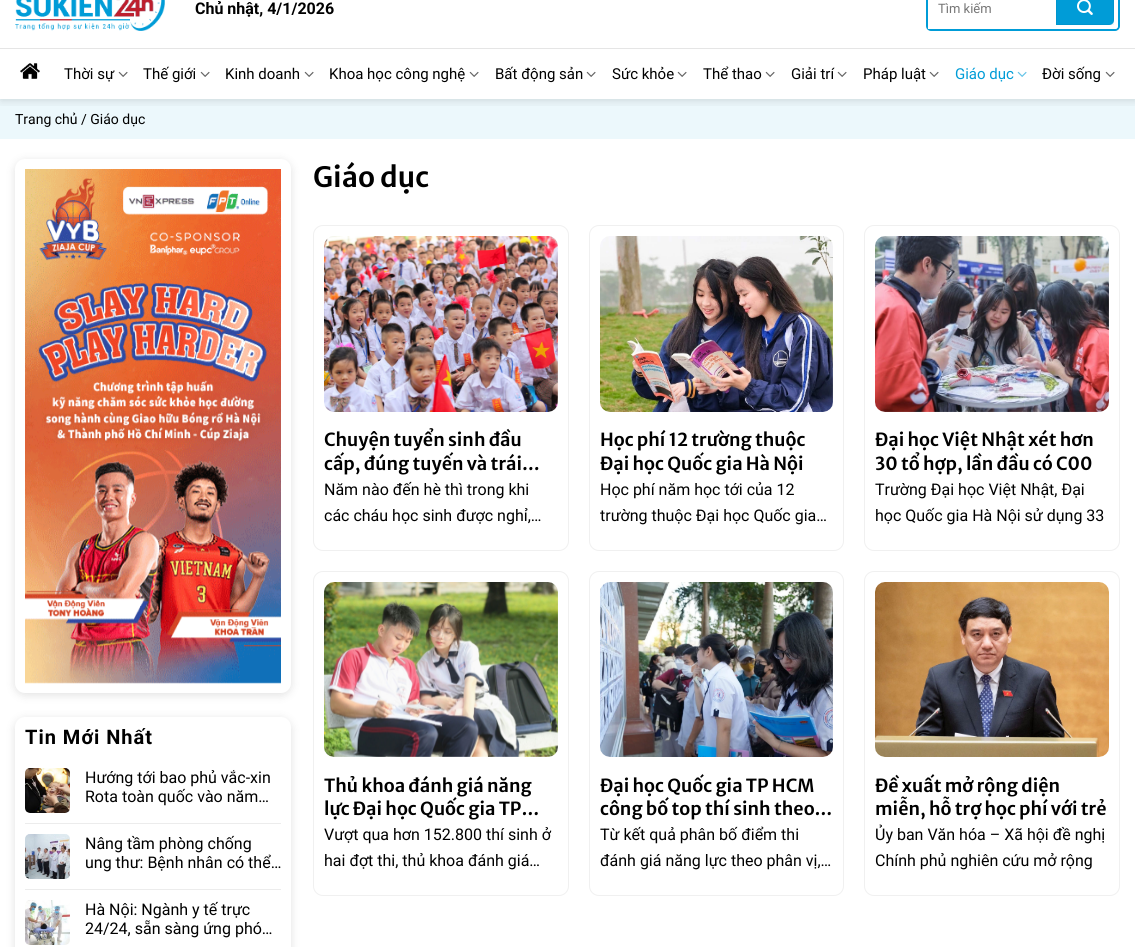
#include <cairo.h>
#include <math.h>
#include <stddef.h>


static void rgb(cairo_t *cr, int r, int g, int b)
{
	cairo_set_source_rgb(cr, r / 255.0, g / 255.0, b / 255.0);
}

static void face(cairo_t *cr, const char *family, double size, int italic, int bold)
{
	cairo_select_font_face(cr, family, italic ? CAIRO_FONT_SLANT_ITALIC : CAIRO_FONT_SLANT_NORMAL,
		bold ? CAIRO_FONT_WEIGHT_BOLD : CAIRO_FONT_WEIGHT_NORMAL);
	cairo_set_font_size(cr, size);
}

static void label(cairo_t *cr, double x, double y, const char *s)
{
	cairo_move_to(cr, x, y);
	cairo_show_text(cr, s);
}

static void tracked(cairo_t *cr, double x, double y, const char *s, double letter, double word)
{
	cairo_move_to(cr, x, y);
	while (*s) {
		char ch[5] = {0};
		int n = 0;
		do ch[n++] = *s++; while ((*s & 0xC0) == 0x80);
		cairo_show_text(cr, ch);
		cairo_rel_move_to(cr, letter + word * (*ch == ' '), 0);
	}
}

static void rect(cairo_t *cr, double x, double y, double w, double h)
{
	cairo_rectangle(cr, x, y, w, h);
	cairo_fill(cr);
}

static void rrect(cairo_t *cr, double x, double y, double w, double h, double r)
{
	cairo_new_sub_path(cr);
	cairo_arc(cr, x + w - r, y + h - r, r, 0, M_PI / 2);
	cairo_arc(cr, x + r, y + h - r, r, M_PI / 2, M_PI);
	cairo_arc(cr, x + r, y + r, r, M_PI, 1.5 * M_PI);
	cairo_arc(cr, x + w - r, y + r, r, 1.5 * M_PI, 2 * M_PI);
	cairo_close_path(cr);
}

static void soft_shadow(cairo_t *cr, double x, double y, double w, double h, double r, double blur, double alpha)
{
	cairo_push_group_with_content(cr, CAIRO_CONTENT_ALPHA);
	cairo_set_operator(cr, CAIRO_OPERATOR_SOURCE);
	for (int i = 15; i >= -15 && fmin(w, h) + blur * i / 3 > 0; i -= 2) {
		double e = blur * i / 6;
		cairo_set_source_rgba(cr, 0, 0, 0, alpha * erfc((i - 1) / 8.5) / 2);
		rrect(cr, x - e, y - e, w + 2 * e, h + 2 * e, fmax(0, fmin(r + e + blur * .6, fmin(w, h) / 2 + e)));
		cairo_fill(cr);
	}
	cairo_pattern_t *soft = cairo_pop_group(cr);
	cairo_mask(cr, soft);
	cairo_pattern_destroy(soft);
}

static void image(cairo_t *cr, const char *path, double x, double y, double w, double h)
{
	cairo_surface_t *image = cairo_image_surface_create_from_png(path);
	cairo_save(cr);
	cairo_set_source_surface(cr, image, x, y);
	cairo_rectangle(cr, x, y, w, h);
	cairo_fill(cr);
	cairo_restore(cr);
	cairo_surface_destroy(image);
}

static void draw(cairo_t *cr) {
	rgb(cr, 255, 255, 255);
	cairo_paint(cr);
	rgb(cr, 236, 248, 252);
	rect(cr, 0, 99, 1135, 40);
	cairo_save(cr);
	cairo_rectangle(cr, 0, 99, 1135, 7);
	cairo_clip(cr);
	rgb(cr, 0, 0, 0);
	soft_shadow(cr, 1, -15, 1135, 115, 0, 5, 0.15);
	cairo_restore(cr);
	rgb(cr, 229, 229, 229);
	rect(cr, 0, 48, 1135, 1);
	image(cr, "image0.png", 15, 0, 150, 31);
	face(cr, "Roboto", 16, 0, 1);
	rgb(cr, 0, 0, 0);
	label(cr, 195, 14, "Chủ nhật, 4/1/2026");
	rrect(cr, 927, -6, 192, 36, 4);
	rgb(cr, 0, 156, 215);
	cairo_stroke(cr);
	rgb(cr, 255, 255, 255);
	rrect(cr, 928, -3, 190, 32, 3);
	cairo_fill(cr);
	rect(cr, 928, 26, 3, 3);
	face(cr, "Roboto", 13, 0, 0);
	rgb(cr, 117, 117, 117);
	label(cr, 938, 13, "Tìm kiếm");
	rgb(cr, 0, 156, 215);
	cairo_new_path(cr);
	cairo_move_to(cr, 1056, -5);
	cairo_line_to(cr, 1109, -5);
	cairo_curve_to(cr, 1112, -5, 1114, -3, 1114, 0);
	cairo_line_to(cr, 1114, 20);
	cairo_curve_to(cr, 1114, 23, 1112, 25, 1109, 25);
	cairo_line_to(cr, 1056, 25);
	cairo_close_path(cr);
	cairo_fill(cr);
	cairo_rectangle(cr, 1056.5, -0.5, 57, 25);
	cairo_set_source_rgba(cr, 0, 0, 0, 0.05);
	cairo_set_line_width(cr, 1);
	cairo_stroke(cr);
	image(cr, "image1.png", 1077, 0, 16, 15);
	image(cr, "image2.png", 20, 63, 20, 16);
	face(cr, "Roboto", 15, 0, 0);
	rgb(cr, 0, 0, 0);
	label(cr, 64, 79, "Thời sự");
	image(cr, "image3.png", 118, 71, 10, 6);
	label(cr, 143, 79, "Thế giới");
	image(cr, "image3.png", 200, 71, 10, 6);
	label(cr, 225, 79, "Kinh doanh");
	image(cr, "image3.png", 304, 71, 10, 6);
	label(cr, 329, 79, "Khoa học công nghệ");
	image(cr, "image3.png", 469, 71, 10, 6);
	label(cr, 495, 79, "Bất động sản");
	image(cr, "image3.png", 586, 71, 10, 6);
	label(cr, 612, 79, "Sức khỏe");
	image(cr, "image3.png", 677, 71, 10, 6);
	label(cr, 703, 79, "Thể thao");
	image(cr, "image3.png", 765, 71, 10, 6);
	label(cr, 791, 79, "Giải trí");
	image(cr, "image3.png", 837, 71, 10, 6);
	label(cr, 863, 79, "Pháp luật");
	image(cr, "image3.png", 929, 71, 10, 6);
	rgb(cr, 0, 156, 215);
	label(cr, 955, 79, "Giáo dục");
	image(cr, "image4.png", 1017, 71, 10, 6);
	rgb(cr, 0, 0, 0);
	label(cr, 1042, 79, "Đời sống");
	image(cr, "image3.png", 1105, 71, 10, 6);
	face(cr, "Roboto", 14, 0, 0);
	label(cr, 15, 124, "Trang chủ");
	label(cr, 81, 124, "/ Giáo dục");
	rgb(cr, 0, 0, 0);
	soft_shadow(cr, 15, 161, 276, 534, 10, 5, 0.12);
	rgb(cr, 255, 255, 255);
	rrect(cr, 15, 159, 276, 534, 10);
	cairo_fill(cr);
	image(cr, "image5.png", 25, 169, 256, 515);
	rgb(cr, 0, 0, 0);
	soft_shadow(cr, 15, 719, 276, 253, 10, 5, 0.12);
	rgb(cr, 255, 255, 255);
	rrect(cr, 15, 717, 276, 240, 10);
	cairo_fill(cr);
	face(cr, "Roboto", 20, 0, 1);
	rgb(cr, 0, 0, 0);
	tracked(cr, 25, 744, "Tin Mới Nhất", 1, 0);
	image(cr, "image6.png", 25, 768, 45, 45);
	face(cr, "Roboto", 16, 0, 0);
	label(cr, 85, 783, "Hướng tới bao phủ vắc-xin");
	label(cr, 85, 802, "Rota toàn quốc vào năm…");
	rgb(cr, 236, 236, 236);
	rect(cr, 25, 823, 256, 1);
	image(cr, "image7.png", 25, 834, 45, 45);
	rgb(cr, 0, 0, 0);
	label(cr, 85, 849, "Nâng tầm phòng chống");
	label(cr, 85, 868, "ung thư: Bệnh nhân có thể…");
	rgb(cr, 236, 236, 236);
	rect(cr, 25, 889, 256, 1);
	image(cr, "image8.png", 25, 900, 45, 45);
	rgb(cr, 0, 0, 0);
	label(cr, 85, 915, "Hà Nội: Ngành y tế trực");
	label(cr, 85, 934, "24/24, sẵn sàng ứng phó…");
	face(cr, "Merriweather Sans SemiBold", 28, 0, 0);
	label(cr, 313, 187, "Giáo dục");
	rrect(cr, 313.5, 225.5, 255, 325, 9.5);
	rgb(cr, 240, 240, 240);
	cairo_stroke(cr);
	image(cr, "image9.png", 324, 236, 234, 176);
	face(cr, "Merriweather Sans SemiBold", 18, 0, 0);
	rgb(cr, 0, 0, 0);
	label(cr, 324, 446, "Chuyện tuyển sinh đầu");
	label(cr, 324, 470, "cấp, đúng tuyến và trái…");
	face(cr, "Roboto", 16, 0, 0);
	label(cr, 324, 495, "Năm nào đến hè thì trong khi");
	label(cr, 324, 521, "các cháu học sinh được nghỉ,…");
	rrect(cr, 589.5, 225.5, 254, 325, 9.5);
	rgb(cr, 240, 240, 240);
	cairo_stroke(cr);
	image(cr, "image10.png", 600, 236, 233, 176);
	face(cr, "Merriweather Sans SemiBold", 18, 0, 0);
	rgb(cr, 0, 0, 0);
	label(cr, 600, 446, "Học phí 12 trường thuộc");
	label(cr, 600, 470, "Đại học Quốc gia Hà Nội");
	face(cr, "Roboto", 16, 0, 0);
	label(cr, 600, 495, "Học phí năm học tới của 12");
	label(cr, 600, 521, "trường thuộc Đại học Quốc gia…");
	rrect(cr, 864.5, 225.5, 255, 325, 9.5);
	rgb(cr, 240, 240, 240);
	cairo_stroke(cr);
	image(cr, "image11.png", 875, 236, 234, 176);
	face(cr, "Merriweather Sans SemiBold", 18, 0, 0);
	rgb(cr, 0, 0, 0);
	label(cr, 875, 446, "Đại học Việt Nhật xét hơn");
	label(cr, 875, 470, "30 tổ hợp, lần đầu có C00");
	face(cr, "Roboto", 16, 0, 0);
	label(cr, 875, 495, "Trường Đại học Việt Nhật, Đại");
	label(cr, 875, 521, "học Quốc gia Hà Nội sử dụng 33");
	rrect(cr, 313.5, 571.5, 255, 324, 9.5);
	rgb(cr, 240, 240, 240);
	cairo_stroke(cr);
	image(cr, "image12.png", 324, 582, 234, 175);
	face(cr, "Merriweather Sans SemiBold", 18, 0, 0);
	rgb(cr, 0, 0, 0);
	label(cr, 324, 792, "Thủ khoa đánh giá năng");
	label(cr, 324, 815, "lực Đại học Quốc gia TP…");
	face(cr, "Roboto", 16, 0, 0);
	label(cr, 324, 840, "Vượt qua hơn 152.800 thí sinh ở");
	label(cr, 324, 866, "hai đợt thi, thủ khoa đánh giá…");
	rrect(cr, 589.5, 571.5, 254, 324, 9.5);
	rgb(cr, 240, 240, 240);
	cairo_stroke(cr);
	image(cr, "image13.png", 600, 582, 233, 175);
	face(cr, "Merriweather Sans SemiBold", 18, 0, 0);
	rgb(cr, 0, 0, 0);
	label(cr, 600, 792, "Đại học Quốc gia TP HCM");
	label(cr, 600, 815, "công bố top thí sinh theo…");
	face(cr, "Roboto", 16, 0, 0);
	label(cr, 600, 840, "Từ kết quả phân bố điểm thi");
	label(cr, 600, 866, "đánh giá năng lực theo phân vị,…");
	rrect(cr, 864.5, 571.5, 255, 324, 9.5);
	rgb(cr, 240, 240, 240);
	cairo_stroke(cr);
	image(cr, "image14.png", 875, 582, 234, 175);
	face(cr, "Merriweather Sans SemiBold", 18, 0, 0);
	rgb(cr, 0, 0, 0);
	label(cr, 875, 792, "Đề xuất mở rộng diện");
	label(cr, 875, 815, "miễn, hỗ trợ học phí với trẻ");
	face(cr, "Roboto", 16, 0, 0);
	label(cr, 875, 840, "Ủy ban Văn hóa – Xã hội đề nghị");
	label(cr, 875, 866, "Chính phủ nghiên cứu mở rộng");
}

int main(void) {
	cairo_surface_t *surface = cairo_image_surface_create(CAIRO_FORMAT_RGB24, 1135, 947);
	cairo_t *cr = cairo_create(surface);
	cairo_font_options_t *options = cairo_font_options_create();
	cairo_font_options_set_hint_metrics(options, CAIRO_HINT_METRICS_OFF);
	cairo_font_options_set_hint_style(options, CAIRO_HINT_STYLE_NONE);
	cairo_set_font_options(cr, options);
	cairo_set_miter_limit(cr, 4);
	draw(cr);
	cairo_surface_write_to_png(surface, "render.png");
	cairo_font_options_destroy(options);
	cairo_destroy(cr);
	cairo_surface_destroy(surface);
	return 0;
}
